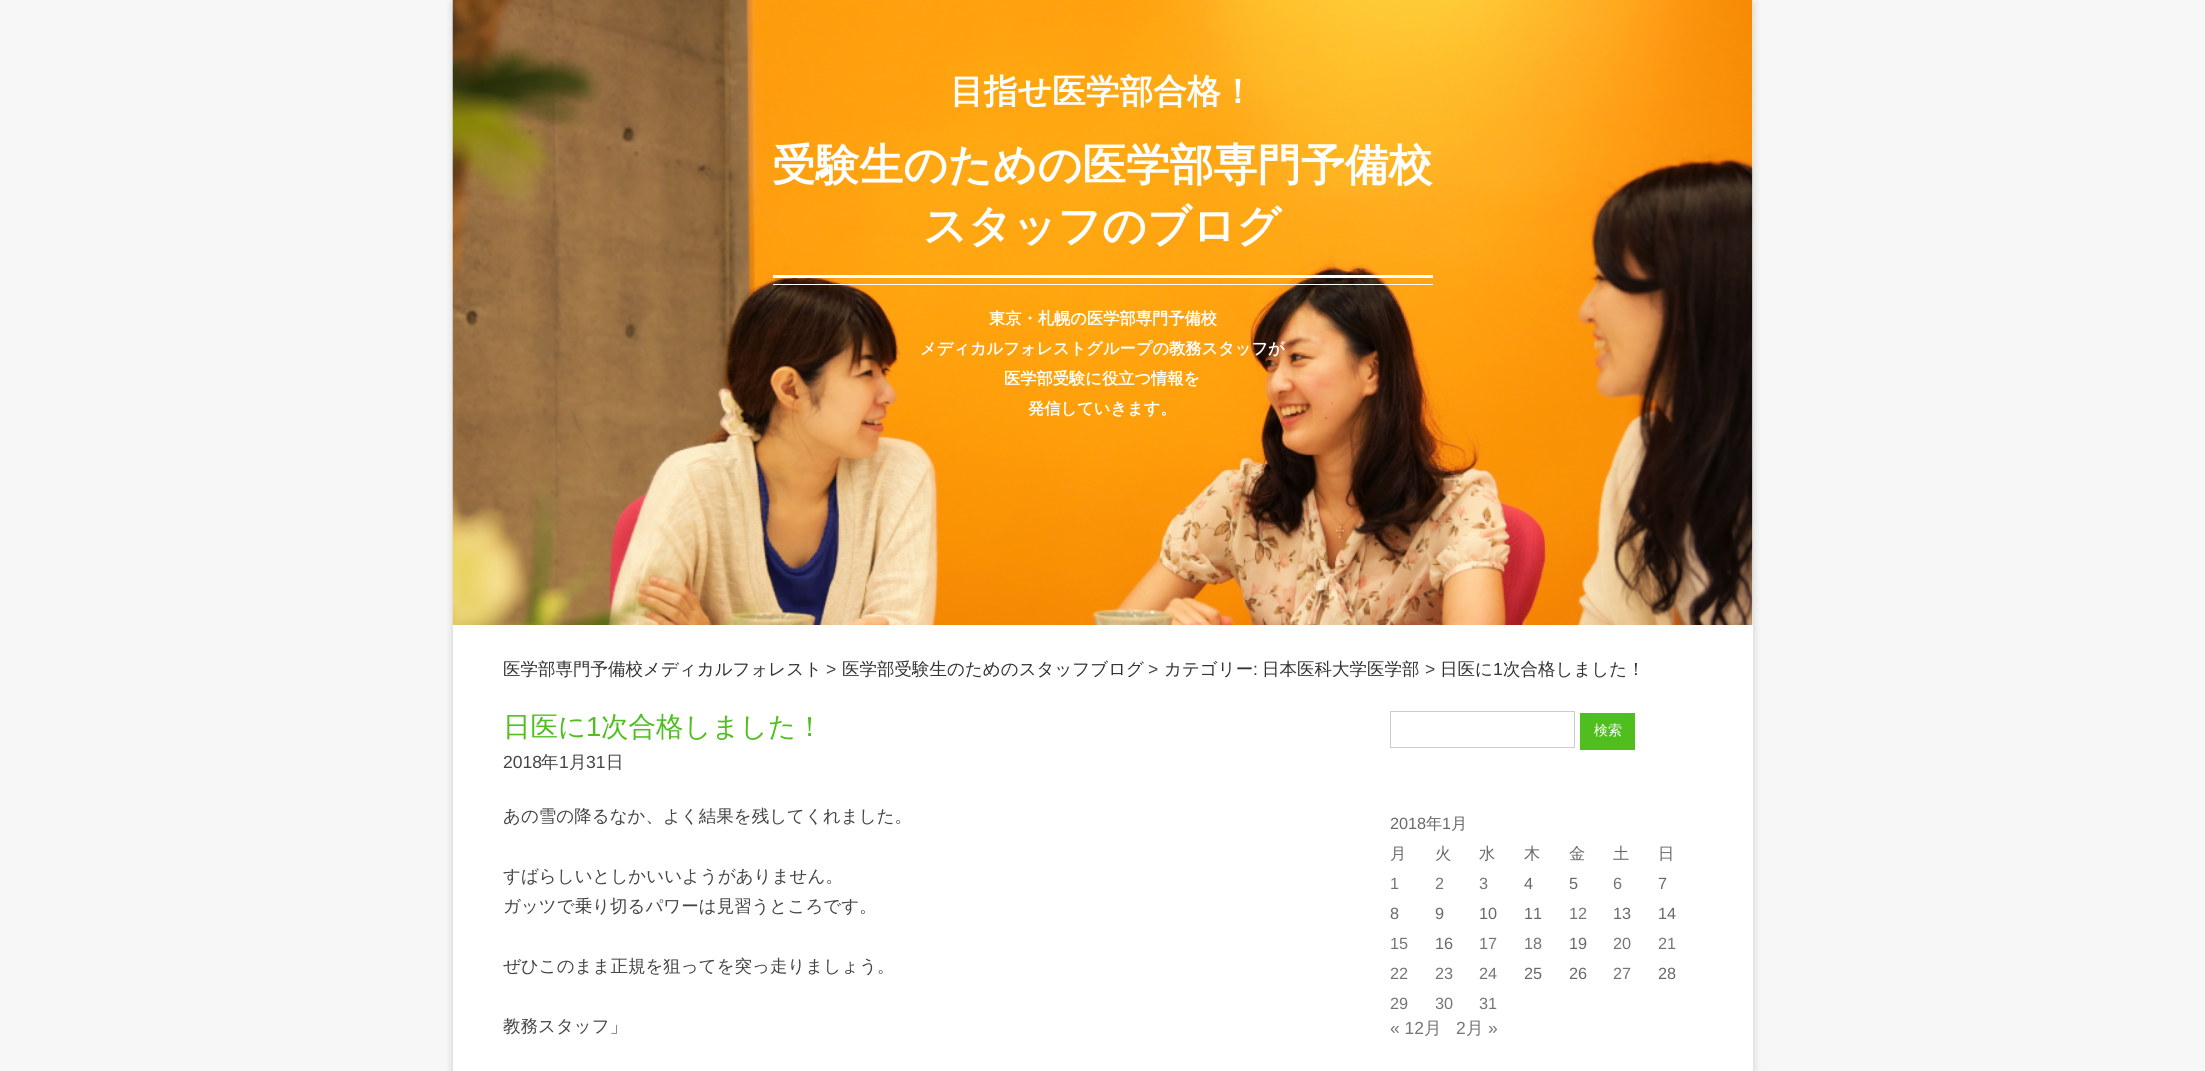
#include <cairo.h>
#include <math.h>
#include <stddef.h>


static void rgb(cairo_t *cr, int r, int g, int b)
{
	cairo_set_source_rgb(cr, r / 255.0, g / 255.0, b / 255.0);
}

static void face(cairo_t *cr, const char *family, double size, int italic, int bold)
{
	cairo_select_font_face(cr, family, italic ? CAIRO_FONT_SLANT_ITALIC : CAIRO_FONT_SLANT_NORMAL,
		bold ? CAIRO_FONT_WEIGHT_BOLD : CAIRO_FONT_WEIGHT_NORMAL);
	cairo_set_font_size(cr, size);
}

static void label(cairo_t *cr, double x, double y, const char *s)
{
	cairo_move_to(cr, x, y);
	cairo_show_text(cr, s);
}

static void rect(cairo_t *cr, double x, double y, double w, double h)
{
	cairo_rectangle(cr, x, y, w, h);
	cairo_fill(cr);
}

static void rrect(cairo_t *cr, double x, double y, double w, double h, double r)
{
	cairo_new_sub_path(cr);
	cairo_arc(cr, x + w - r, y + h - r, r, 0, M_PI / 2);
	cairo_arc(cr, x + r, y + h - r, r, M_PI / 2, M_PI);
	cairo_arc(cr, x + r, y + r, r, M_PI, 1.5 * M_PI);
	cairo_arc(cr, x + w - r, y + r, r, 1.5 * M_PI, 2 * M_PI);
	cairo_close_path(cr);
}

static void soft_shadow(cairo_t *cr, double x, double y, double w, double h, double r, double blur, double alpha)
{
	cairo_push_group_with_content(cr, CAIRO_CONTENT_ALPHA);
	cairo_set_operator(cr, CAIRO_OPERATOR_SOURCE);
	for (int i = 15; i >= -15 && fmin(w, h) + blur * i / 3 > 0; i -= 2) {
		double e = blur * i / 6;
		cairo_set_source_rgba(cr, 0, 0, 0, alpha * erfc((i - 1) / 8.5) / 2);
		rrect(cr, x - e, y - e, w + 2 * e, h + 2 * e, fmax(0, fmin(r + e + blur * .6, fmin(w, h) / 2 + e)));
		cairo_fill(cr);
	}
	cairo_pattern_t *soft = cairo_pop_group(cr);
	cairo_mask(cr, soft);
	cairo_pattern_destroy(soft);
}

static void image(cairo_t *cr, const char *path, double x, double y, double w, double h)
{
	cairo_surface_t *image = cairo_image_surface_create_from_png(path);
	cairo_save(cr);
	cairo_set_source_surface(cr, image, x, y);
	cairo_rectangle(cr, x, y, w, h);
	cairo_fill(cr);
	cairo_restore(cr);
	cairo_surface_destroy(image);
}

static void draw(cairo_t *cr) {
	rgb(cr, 247, 247, 247);
	cairo_paint(cr);
	rgb(cr, 100, 100, 100);
	soft_shadow(cr, 453, 3, 1300, 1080, 0, 4, 0.3);
	rgb(cr, 255, 255, 255);
	rect(cr, 453, 0, 1300, 1071);
	image(cr, "image0.png", 452, 0, 1301, 625);
	rect(cr, 773, 284, 660, 1);
	face(cr, "WenQuanYi Zen Hei", 33.75, 0, 1);
	label(cr, 950, 103, "目指せ医学部合格！");
	rect(cr, 773, 275, 660, 3);
	face(cr, "WenQuanYi Zen Hei", 43.75, 0, 1);
	label(cr, 772, 180, "受験生のための医学部専門予備校");
	label(cr, 923, 241, "スタッフのブログ");
	face(cr, "WenQuanYi Zen Hei", 16.25, 0, 1);
	label(cr, 989, 324, "東京・札幌の医学部専門予備校");
	label(cr, 920, 354, "メディカルフォレストグループの教務スタッフが");
	label(cr, 1004, 384, "医学部受験に役立つ情報を");
	label(cr, 1028, 414, "発信していきます。");
	face(cr, "WenQuanYi Zen Hei Medium", 17.5, 0, 0);
	rgb(cr, 49, 49, 49);
	label(cr, 503, 675, "医学部専門予備校メディカルフォレスト");
	face(cr, "Liberation Sans", 17.5, 0, 0);
	rgb(cr, 68, 68, 68);
	label(cr, 826, 675, ">");
	face(cr, "WenQuanYi Zen Hei Medium", 17.5, 0, 0);
	rgb(cr, 49, 49, 49);
	label(cr, 842, 675, "医学部受験生のためのスタッフブログ");
	face(cr, "Liberation Sans", 17.5, 0, 0);
	rgb(cr, 68, 68, 68);
	label(cr, 1148, 675, ">");
	face(cr, "WenQuanYi Zen Hei Medium", 17.5, 0, 0);
	rgb(cr, 49, 49, 49);
	label(cr, 1164, 675, "カテゴリー");
	face(cr, "Liberation Sans", 17.5, 0, 0);
	label(cr, 1253, 675, ":");
	face(cr, "WenQuanYi Zen Hei Medium", 17.5, 0, 0);
	label(cr, 1262, 675, "日本医科大学医学部");
	face(cr, "Liberation Sans", 17.5, 0, 0);
	rgb(cr, 68, 68, 68);
	label(cr, 1425, 675, ">");
	face(cr, "WenQuanYi Zen Hei Medium", 17.5, 0, 0);
	rgb(cr, 49, 49, 49);
	label(cr, 1440, 675, "日医に");
	face(cr, "Liberation Sans", 17.5, 0, 0);
	label(cr, 1493, 675, "1");
	face(cr, "WenQuanYi Zen Hei Medium", 17.5, 0, 0);
	label(cr, 1503, 675, "次合格しました！");
	face(cr, "WenQuanYi Zen Hei Medium", 27.5, 0, 0);
	rgb(cr, 80, 190, 31);
	label(cr, 503, 736, "日医に");
	face(cr, "Liberation Sans", 27.5, 0, 0);
	label(cr, 586, 736, "1");
	face(cr, "WenQuanYi Zen Hei Medium", 27.5, 0, 0);
	label(cr, 601, 736, "次合格しました！");
	face(cr, "Liberation Sans", 17.5, 0, 0);
	rgb(cr, 68, 68, 68);
	label(cr, 503, 768, "2018");
	face(cr, "WenQuanYi Zen Hei Medium", 17.5, 0, 0);
	label(cr, 541, 768, "年");
	face(cr, "Liberation Sans", 17.5, 0, 0);
	label(cr, 559, 768, "1");
	face(cr, "WenQuanYi Zen Hei Medium", 17.5, 0, 0);
	label(cr, 569, 768, "月");
	face(cr, "Liberation Sans", 17.5, 0, 0);
	label(cr, 586, 768, "31");
	face(cr, "WenQuanYi Zen Hei Medium", 17.5, 0, 0);
	label(cr, 606, 768, "日");
	label(cr, 503, 822, "あの雪の降るなか、よく結果を残してくれました。");
	label(cr, 503, 882, "すばらしいとしかいいようがありません。");
	label(cr, 503, 912, "ガッツで乗り切るパワーは見習うところです。");
	label(cr, 503, 972, "ぜひこのまま正規を狙ってを突っ走りましょう。");
	label(cr, 503, 1032, "教務スタッフ」");
	cairo_rectangle(cr, 1390.5, 711.5, 184, 36);
	rgb(cr, 204, 204, 204);
	cairo_set_line_width(cr, 1);
	cairo_stroke(cr);
	rgb(cr, 80, 190, 31);
	rect(cr, 1580, 713, 55, 37);
	face(cr, "WenQuanYi Zen Hei Medium", 14, 0, 0);
	rgb(cr, 255, 255, 255);
	label(cr, 1594, 735, "検索");
	face(cr, "Liberation Sans", 16.25, 0, 0);
	rgb(cr, 104, 104, 104);
	label(cr, 1390, 829, "2018");
	face(cr, "WenQuanYi Zen Hei Medium", 16.25, 0, 0);
	label(cr, 1426, 829, "年");
	face(cr, "Liberation Sans", 16.25, 0, 0);
	label(cr, 1442, 829, "1");
	face(cr, "WenQuanYi Zen Hei Medium", 16.25, 0, 0);
	label(cr, 1451, 829, "月");
	label(cr, 1390, 859, "月");
	label(cr, 1435, 859, "火");
	label(cr, 1479, 859, "水");
	label(cr, 1524, 859, "木");
	label(cr, 1569, 859, "金");
	label(cr, 1613, 859, "土");
	label(cr, 1658, 859, "日");
	face(cr, "Liberation Sans", 16.25, 0, 0);
	rgb(cr, 117, 117, 117);
	label(cr, 1390, 889, "1");
	label(cr, 1435, 889, "2");
	label(cr, 1479, 889, "3");
	rgb(cr, 104, 104, 104);
	label(cr, 1524, 889, "4");
	label(cr, 1569, 889, "5");
	rgb(cr, 117, 117, 117);
	label(cr, 1613, 889, "6");
	rgb(cr, 104, 104, 104);
	label(cr, 1658, 889, "7");
	label(cr, 1390, 919, "8");
	label(cr, 1435, 919, "9");
	label(cr, 1479, 919, "10");
	label(cr, 1524, 919, "11");
	rgb(cr, 117, 117, 117);
	label(cr, 1569, 919, "12");
	rgb(cr, 104, 104, 104);
	label(cr, 1613, 919, "13");
	label(cr, 1658, 919, "14");
	rgb(cr, 117, 117, 117);
	label(cr, 1390, 949, "15");
	rgb(cr, 104, 104, 104);
	label(cr, 1435, 949, "16");
	rgb(cr, 117, 117, 117);
	label(cr, 1479, 949, "17");
	label(cr, 1524, 949, "18");
	rgb(cr, 104, 104, 104);
	label(cr, 1569, 949, "19");
	rgb(cr, 117, 117, 117);
	label(cr, 1613, 949, "20");
	label(cr, 1658, 949, "21");
	label(cr, 1390, 979, "22");
	label(cr, 1435, 979, "23");
	label(cr, 1479, 979, "24");
	rgb(cr, 104, 104, 104);
	label(cr, 1524, 979, "25");
	label(cr, 1569, 979, "26");
	rgb(cr, 117, 117, 117);
	label(cr, 1613, 979, "27");
	rgb(cr, 104, 104, 104);
	label(cr, 1658, 979, "28");
	rgb(cr, 117, 117, 117);
	label(cr, 1390, 1009, "29");
	label(cr, 1435, 1009, "30");
	label(cr, 1479, 1009, "31");
	face(cr, "Liberation Sans", 17.5, 0, 0);
	label(cr, 1390, 1034, "« 12");
	face(cr, "WenQuanYi Zen Hei Medium", 17.5, 0, 0);
	label(cr, 1424, 1034, "月");
	face(cr, "Liberation Sans", 17.5, 0, 0);
	label(cr, 1456, 1034, "2");
	face(cr, "WenQuanYi Zen Hei Medium", 17.5, 0, 0);
	label(cr, 1466, 1034, "月");
	face(cr, "Liberation Sans", 17.5, 0, 0);
	label(cr, 1488, 1034, "»");
}

int main(void) {
	cairo_surface_t *surface = cairo_image_surface_create(CAIRO_FORMAT_RGB24, 2205, 1071);
	cairo_t *cr = cairo_create(surface);
	cairo_font_options_t *options = cairo_font_options_create();
	cairo_font_options_set_hint_metrics(options, CAIRO_HINT_METRICS_OFF);
	cairo_font_options_set_hint_style(options, CAIRO_HINT_STYLE_NONE);
	cairo_set_font_options(cr, options);
	cairo_set_miter_limit(cr, 4);
	draw(cr);
	cairo_surface_write_to_png(surface, "render.png");
	cairo_font_options_destroy(options);
	cairo_destroy(cr);
	cairo_surface_destroy(surface);
	return 0;
}
